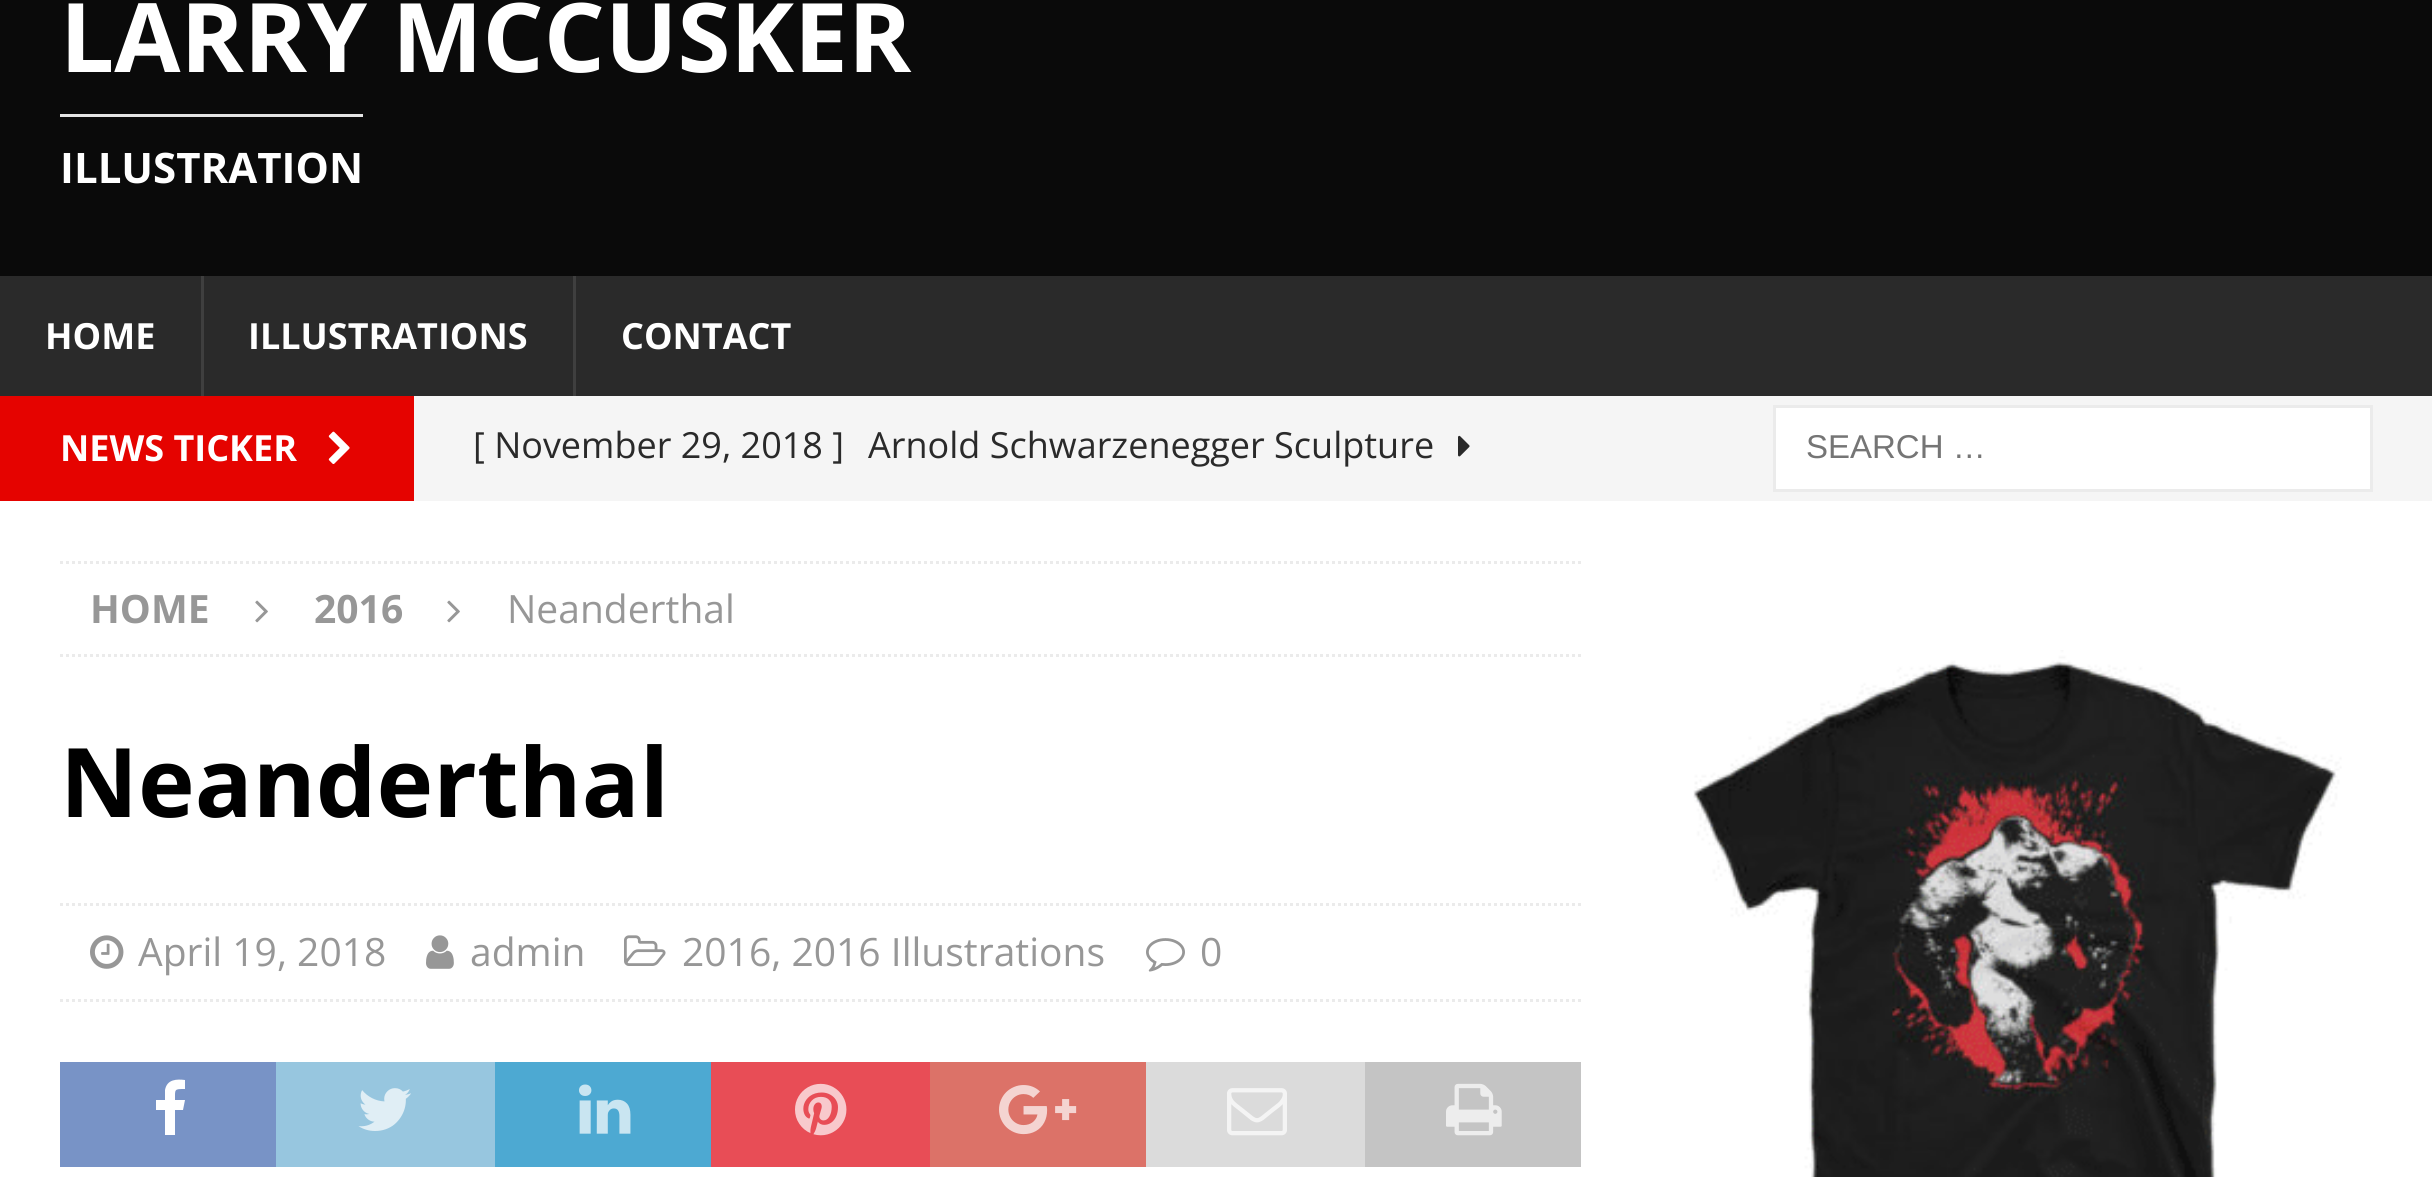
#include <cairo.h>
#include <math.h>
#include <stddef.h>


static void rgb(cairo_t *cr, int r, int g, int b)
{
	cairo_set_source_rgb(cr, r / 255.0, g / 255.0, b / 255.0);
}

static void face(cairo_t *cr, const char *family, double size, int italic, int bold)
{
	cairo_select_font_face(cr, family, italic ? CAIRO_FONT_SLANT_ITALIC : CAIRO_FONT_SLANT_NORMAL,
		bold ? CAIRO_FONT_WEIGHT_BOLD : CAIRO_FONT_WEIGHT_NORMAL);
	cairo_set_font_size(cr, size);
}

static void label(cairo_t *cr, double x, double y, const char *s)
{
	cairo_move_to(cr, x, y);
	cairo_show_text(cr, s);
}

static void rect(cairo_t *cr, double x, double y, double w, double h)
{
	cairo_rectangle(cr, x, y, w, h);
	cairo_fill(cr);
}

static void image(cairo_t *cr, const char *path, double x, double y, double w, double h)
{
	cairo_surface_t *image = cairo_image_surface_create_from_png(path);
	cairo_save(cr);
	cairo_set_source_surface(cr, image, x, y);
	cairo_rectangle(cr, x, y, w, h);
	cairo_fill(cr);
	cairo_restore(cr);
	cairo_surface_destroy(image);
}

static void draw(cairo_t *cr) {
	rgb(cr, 10, 10, 10);
	cairo_paint(cr);
	face(cr, "Open Sans", 96, 0, 1);
	rgb(cr, 255, 255, 255);
	label(cr, 60, 72, "LARRY MCCUSKER");
	rgb(cr, 229, 229, 229);
	rect(cr, 60, 114, 303, 3);
	face(cr, "Open Sans", 42, 0, 1);
	rgb(cr, 255, 255, 255);
	label(cr, 60, 183, "ILLUSTRATION");
	rgb(cr, 42, 42, 42);
	rect(cr, 0, 276, 2432, 120);
	face(cr, "Open Sans", 36, 0, 1);
	rgb(cr, 255, 255, 255);
	label(cr, 45, 349, "HOME");
	rgb(cr, 63, 63, 63);
	rect(cr, 201, 276, 3, 120);
	rgb(cr, 255, 255, 255);
	label(cr, 248, 349, "ILLUSTRATIONS");
	rgb(cr, 63, 63, 63);
	rect(cr, 573, 276, 3, 120);
	rgb(cr, 255, 255, 255);
	label(cr, 621, 349, "CONTACT");
	rgb(cr, 245, 245, 245);
	rect(cr, 414, 396, 2018, 105);
	rgb(cr, 229, 3, 0);
	rect(cr, 0, 396, 414, 105);
	rgb(cr, 255, 255, 255);
	label(cr, 60, 461, "NEWS TICKER");
	image(cr, "image0.png", 328, 431, 22, 33);
	face(cr, "Open Sans", 36, 0, 0);
	rgb(cr, 42, 42, 42);
	label(cr, 473, 458, "[ November 29, 2018 ]");
	label(cr, 868, 458, "Arnold Schwarzenegger Sculpture");
	image(cr, "image1.png", 1458, 435, 12, 22);
	rgb(cr, 255, 255, 255);
	cairo_rectangle(cr, 1774.5, 406.5, 597, 84);
	cairo_fill_preserve(cr);
	rgb(cr, 235, 235, 235);
	cairo_set_line_width(cr, 3);
	cairo_stroke(cr);
	face(cr, "Liberation Sans", 33, 0, 0);
	rgb(cr, 117, 117, 117);
	label(cr, 1806, 458, "SEARCH …");
	rgb(cr, 255, 255, 255);
	rect(cr, 0, 501, 2432, 676);
	cairo_new_path(cr);
	cairo_move_to(cr, 60, 562.5);
	cairo_line_to(cr, 1584, 562.5);
	rgb(cr, 235, 235, 235);
	cairo_set_dash(cr, (double[]){3, 3}, 2, 0);
	cairo_stroke(cr);
	cairo_new_path(cr);
	cairo_move_to(cr, 60, 655.5);
	cairo_line_to(cr, 1584, 655.5);
	cairo_stroke(cr);
	face(cr, "Open Sans", 39, 0, 1);
	rgb(cr, 151, 151, 151);
	label(cr, 90, 623, "HOME");
	image(cr, "image2.png", 255, 600, 13, 23);
	label(cr, 314, 623, "2016");
	image(cr, "image2.png", 447, 600, 13, 23);
	face(cr, "Open Sans", 39, 0, 0);
	label(cr, 507, 623, "Neanderthal");
	face(cr, "Open Sans", 96, 0, 1);
	rgb(cr, 0, 0, 0);
	label(cr, 60, 817, "Neanderthal");
	cairo_new_path(cr);
	cairo_move_to(cr, 60, 904.5);
	cairo_line_to(cr, 1584, 904.5);
	rgb(cr, 235, 235, 235);
	cairo_stroke(cr);
	cairo_new_path(cr);
	cairo_move_to(cr, 60, 1000.5);
	cairo_line_to(cr, 1584, 1000.5);
	cairo_stroke(cr);
	image(cr, "image3.png", 90, 935, 34, 34);
	face(cr, "Open Sans", 39, 0, 0);
	rgb(cr, 151, 151, 151);
	label(cr, 138, 966, "April 19, 2018");
	image(cr, "image4.png", 426, 935, 28, 34);
	label(cr, 470, 966, "admin");
	image(cr, "image5.png", 624, 935, 42, 31);
	label(cr, 682, 966, "2016, 2016 Illustrations");
	image(cr, "image6.png", 1146, 938, 39, 34);
	label(cr, 1200, 966, "0");
	rgb(cr, 120, 147, 198);
	rect(cr, 60, 1062, 216, 105);
	rgb(cr, 255, 255, 255);
	cairo_new_path(cr);
	cairo_move_to(cr, 185, 1080);
	cairo_line_to(cr, 185, 1089);
	cairo_curve_to(cr, 174, 1089, 175, 1089, 175, 1100);
	cairo_line_to(cr, 185, 1100);
	cairo_line_to(cr, 183, 1110);
	cairo_line_to(cr, 175, 1110);
	cairo_line_to(cr, 175, 1135);
	cairo_line_to(cr, 165, 1135);
	cairo_line_to(cr, 165, 1110);
	cairo_line_to(cr, 156, 1110);
	cairo_line_to(cr, 156, 1100);
	cairo_line_to(cr, 165, 1100);
	cairo_line_to(cr, 165, 1090);
	cairo_curve_to(cr, 167, 1079, 177, 1079, 185, 1080);
	cairo_close_path(cr);
	cairo_fill(cr);
	rgb(cr, 151, 198, 223);
	rect(cr, 276, 1062, 219, 105);
	image(cr, "image7.png", 358, 1088, 53, 43);
	rgb(cr, 77, 169, 210);
	rect(cr, 495, 1062, 216, 105);
	image(cr, "image8.png", 579, 1084, 52, 50);
	rgb(cr, 232, 77, 86);
	rect(cr, 711, 1062, 219, 105);
	image(cr, "image9.png", 795, 1083, 52, 53);
	rgb(cr, 220, 114, 104);
	rect(cr, 930, 1062, 216, 105);
	image(cr, "image10.png", 999, 1085, 78, 50);
	rgb(cr, 219, 219, 219);
	rect(cr, 1146, 1062, 219, 105);
	image(cr, "image11.png", 1227, 1088, 60, 48);
	rgb(cr, 196, 196, 196);
	rect(cr, 1365, 1062, 216, 105);
	image(cr, "image12.png", 1446, 1083, 56, 53);
	image(cr, "image13.png", 1693, 650, 649, 527);
}

int main(void) {
	cairo_surface_t *surface = cairo_image_surface_create(CAIRO_FORMAT_RGB24, 2432, 1177);
	cairo_t *cr = cairo_create(surface);
	cairo_font_options_t *options = cairo_font_options_create();
	cairo_font_options_set_hint_metrics(options, CAIRO_HINT_METRICS_OFF);
	cairo_font_options_set_hint_style(options, CAIRO_HINT_STYLE_NONE);
	cairo_set_font_options(cr, options);
	cairo_set_miter_limit(cr, 4);
	draw(cr);
	cairo_surface_write_to_png(surface, "render.png");
	cairo_font_options_destroy(options);
	cairo_destroy(cr);
	cairo_surface_destroy(surface);
	return 0;
}
